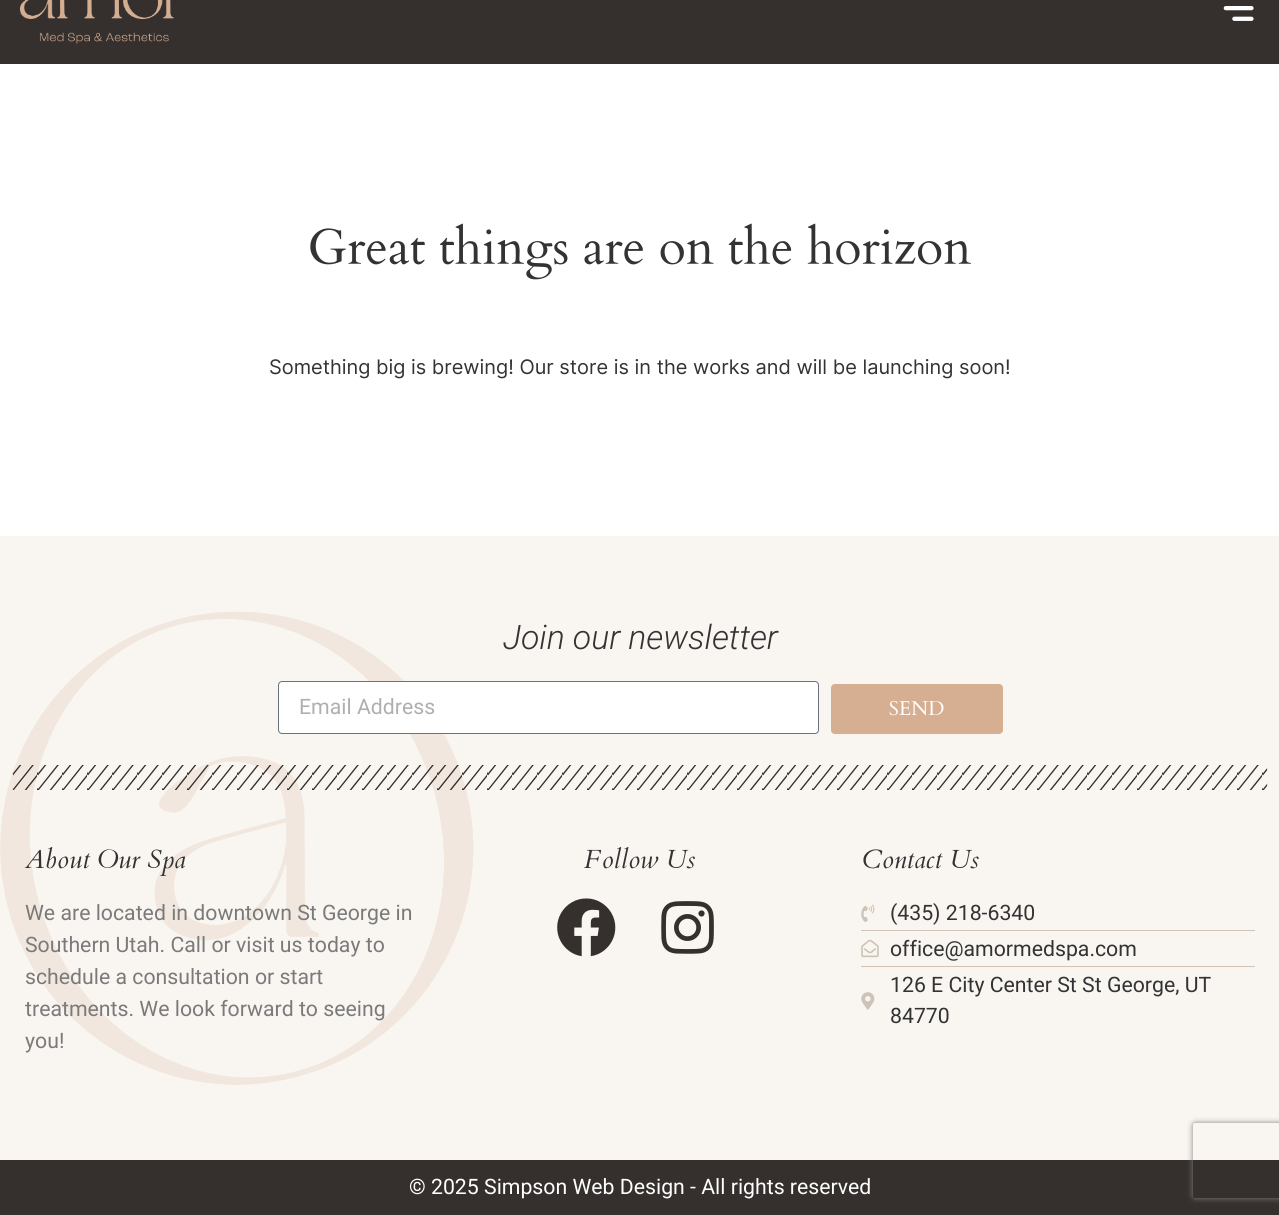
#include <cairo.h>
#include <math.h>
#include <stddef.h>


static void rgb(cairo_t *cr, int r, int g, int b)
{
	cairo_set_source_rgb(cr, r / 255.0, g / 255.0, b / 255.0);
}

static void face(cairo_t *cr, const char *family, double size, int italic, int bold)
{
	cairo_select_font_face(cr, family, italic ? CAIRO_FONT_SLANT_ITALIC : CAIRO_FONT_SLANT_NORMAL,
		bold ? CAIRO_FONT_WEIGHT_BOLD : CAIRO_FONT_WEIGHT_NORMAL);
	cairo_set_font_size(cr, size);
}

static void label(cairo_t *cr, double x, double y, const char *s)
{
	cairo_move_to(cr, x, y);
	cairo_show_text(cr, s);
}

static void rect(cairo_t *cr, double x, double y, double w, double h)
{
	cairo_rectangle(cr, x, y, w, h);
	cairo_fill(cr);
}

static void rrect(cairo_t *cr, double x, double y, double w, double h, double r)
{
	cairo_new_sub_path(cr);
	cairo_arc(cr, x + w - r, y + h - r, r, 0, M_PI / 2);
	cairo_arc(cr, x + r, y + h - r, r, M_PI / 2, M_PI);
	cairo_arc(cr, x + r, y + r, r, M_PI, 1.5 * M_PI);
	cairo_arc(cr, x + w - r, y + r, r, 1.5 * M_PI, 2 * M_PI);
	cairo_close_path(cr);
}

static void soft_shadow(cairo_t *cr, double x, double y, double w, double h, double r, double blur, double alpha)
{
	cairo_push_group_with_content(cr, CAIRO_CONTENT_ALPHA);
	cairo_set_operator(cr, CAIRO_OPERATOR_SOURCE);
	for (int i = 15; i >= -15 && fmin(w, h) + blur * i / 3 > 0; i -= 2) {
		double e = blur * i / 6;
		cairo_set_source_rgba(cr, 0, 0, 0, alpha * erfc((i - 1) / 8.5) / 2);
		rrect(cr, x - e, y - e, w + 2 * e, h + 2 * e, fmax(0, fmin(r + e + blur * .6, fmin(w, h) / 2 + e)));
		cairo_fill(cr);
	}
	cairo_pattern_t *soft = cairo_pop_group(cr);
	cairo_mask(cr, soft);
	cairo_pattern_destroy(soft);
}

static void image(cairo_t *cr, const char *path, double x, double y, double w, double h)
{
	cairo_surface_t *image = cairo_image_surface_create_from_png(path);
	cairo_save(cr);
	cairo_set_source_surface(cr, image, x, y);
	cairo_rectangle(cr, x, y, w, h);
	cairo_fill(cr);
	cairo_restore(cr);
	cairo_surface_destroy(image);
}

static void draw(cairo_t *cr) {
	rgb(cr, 255, 255, 255);
	cairo_paint(cr);
	rgb(cr, 53, 48, 46);
	rect(cr, 0, 0, 1279, 64);
	image(cr, "image0.png", 20, 0, 154, 44);
	image(cr, "image1.png", 1223, 6, 31, 15);
	image(cr, "image2.png", 310, 223, 661, 57);
	face(cr, "Inter", 20, 0, 0);
	rgb(cr, 51, 51, 51);
	label(cr, 269, 374, "Something big is brewing! Our store is in the works and will be launching soon!");
	rgb(cr, 249, 246, 242);
	rect(cr, 0, 536, 1279, 624);
	image(cr, "image3.png", 0, 611, 474, 474);
	face(cr, "Roboto Light", 33.75, 1, 0);
	rgb(cr, 51, 51, 51);
	label(cr, 503, 649, "Join our newsletter");
	rgb(cr, 255, 255, 255);
	rrect(cr, 278.5, 681.5, 540, 52, 3.5);
	cairo_fill_preserve(cr);
	rgb(cr, 105, 114, 125);
	cairo_set_line_width(cr, 1);
	cairo_stroke(cr);
	face(cr, "Roboto", 21.25, 0, 0);
	rgb(cr, 175, 175, 175);
	label(cr, 299, 714, "Email Address");
	rgb(cr, 214, 175, 146);
	rrect(cr, 831, 684, 172, 50, 4);
	cairo_fill(cr);
	image(cr, "image4.png", 889, 700, 55, 16);
	rgb(cr, 53, 48, 46);
	rect(cr, 0, 1160, 1279, 55);
	cairo_save(cr);
	cairo_set_fill_rule(cr, CAIRO_FILL_RULE_EVEN_ODD);
	cairo_new_path(cr);
	cairo_move_to(cr, 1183, 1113);
	cairo_line_to(cr, 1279, 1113);
	cairo_line_to(cr, 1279, 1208);
	cairo_line_to(cr, 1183, 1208);
	cairo_close_path(cr);
	cairo_move_to(cr, 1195.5, 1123);
	cairo_line_to(cr, 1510.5, 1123);
	cairo_curve_to(cr, 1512, 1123, 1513, 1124, 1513, 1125.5);
	cairo_line_to(cr, 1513, 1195.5);
	cairo_curve_to(cr, 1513, 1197, 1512, 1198, 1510.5, 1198);
	cairo_line_to(cr, 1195.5, 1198);
	cairo_curve_to(cr, 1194, 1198, 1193, 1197, 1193, 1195.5);
	cairo_line_to(cr, 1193, 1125.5);
	cairo_curve_to(cr, 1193, 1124, 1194, 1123, 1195.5, 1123);
	cairo_close_path(cr);
	cairo_clip(cr);
	rgb(cr, 128, 128, 128);
	soft_shadow(cr, 1193, 1123, 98, 75, 2.5, 3, 1);
	cairo_restore(cr);
	image(cr, "image5.png", 12, 765, 1256, 25);
	face(cr, "Cardo", 26.25, 1, 0);
	rgb(cr, 51, 51, 51);
	label(cr, 25, 868, "About Our Spa");
	face(cr, "Roboto", 21.25, 0, 0);
	rgb(cr, 122, 122, 122);
	label(cr, 25, 920, "We are located in downtown St George in");
	label(cr, 25, 952, "Southern Utah. Call or visit us today to");
	label(cr, 25, 984, "schedule a consultation or start");
	label(cr, 25, 1016, "treatments. We look forward to seeing");
	label(cr, 25, 1048, "you!");
	face(cr, "Cardo", 26.25, 1, 0);
	rgb(cr, 51, 51, 51);
	label(cr, 584, 868, "Follow Us");
	image(cr, "image6.png", 557, 898, 59, 59);
	image(cr, "image7.png", 661, 901, 53, 53);
	label(cr, 862, 868, "Contact Us");
	image(cr, "image8.png", 861, 904, 14, 18);
	face(cr, "Roboto", 21.25, 0, 0);
	label(cr, 890, 920, "(435) 218-6340");
	rgb(cr, 206, 195, 182);
	rect(cr, 861, 930, 394, 1);
	image(cr, "image9.png", 861, 939, 18, 19);
	rgb(cr, 51, 51, 51);
	label(cr, 890, 956, "office@amormedspa.com");
	rgb(cr, 206, 195, 182);
	rect(cr, 861, 966, 394, 1);
	image(cr, "image10.png", 861, 992, 14, 18);
	rgb(cr, 51, 51, 51);
	label(cr, 890, 992, "126 E City Center St St George, UT");
	label(cr, 890, 1023, "84770");
	rgb(cr, 255, 255, 255);
	label(cr, 409, 1194, "© 2025 Simpson Web Design - All rights reserved");
}

int main(void) {
	cairo_surface_t *surface = cairo_image_surface_create(CAIRO_FORMAT_RGB24, 1279, 1215);
	cairo_t *cr = cairo_create(surface);
	cairo_font_options_t *options = cairo_font_options_create();
	cairo_font_options_set_hint_metrics(options, CAIRO_HINT_METRICS_OFF);
	cairo_font_options_set_hint_style(options, CAIRO_HINT_STYLE_NONE);
	cairo_set_font_options(cr, options);
	cairo_set_miter_limit(cr, 4);
	draw(cr);
	cairo_surface_write_to_png(surface, "render.png");
	cairo_font_options_destroy(options);
	cairo_destroy(cr);
	cairo_surface_destroy(surface);
	return 0;
}
